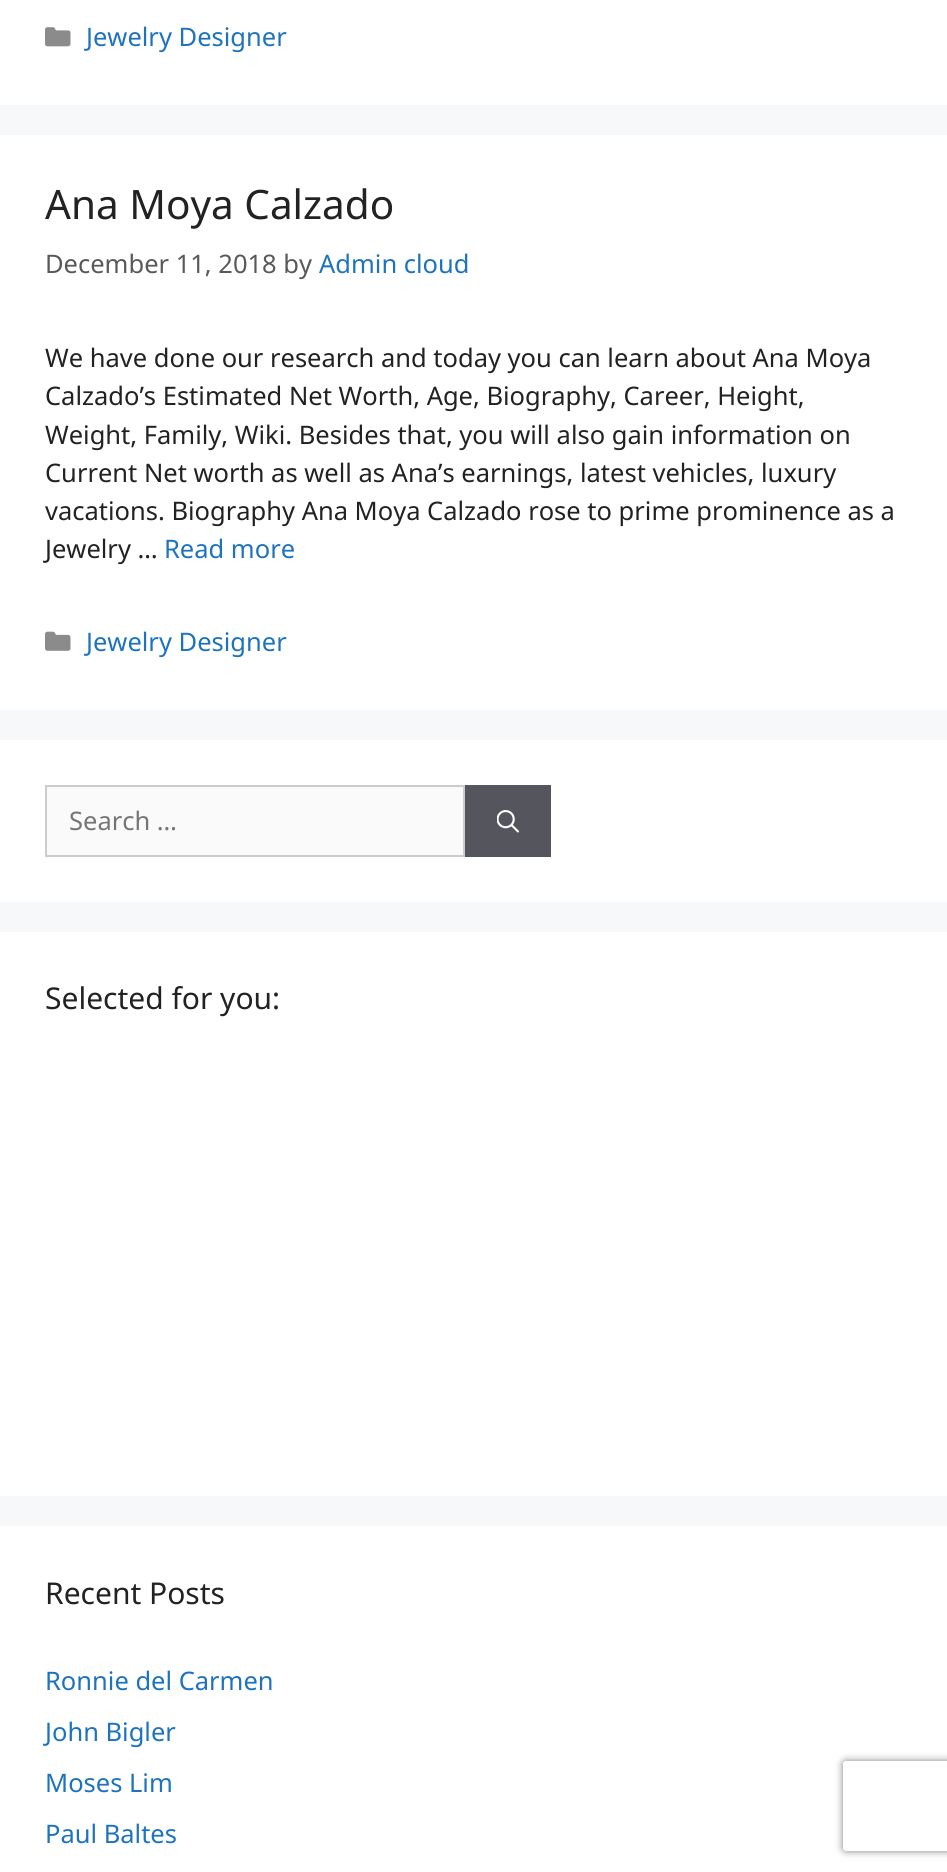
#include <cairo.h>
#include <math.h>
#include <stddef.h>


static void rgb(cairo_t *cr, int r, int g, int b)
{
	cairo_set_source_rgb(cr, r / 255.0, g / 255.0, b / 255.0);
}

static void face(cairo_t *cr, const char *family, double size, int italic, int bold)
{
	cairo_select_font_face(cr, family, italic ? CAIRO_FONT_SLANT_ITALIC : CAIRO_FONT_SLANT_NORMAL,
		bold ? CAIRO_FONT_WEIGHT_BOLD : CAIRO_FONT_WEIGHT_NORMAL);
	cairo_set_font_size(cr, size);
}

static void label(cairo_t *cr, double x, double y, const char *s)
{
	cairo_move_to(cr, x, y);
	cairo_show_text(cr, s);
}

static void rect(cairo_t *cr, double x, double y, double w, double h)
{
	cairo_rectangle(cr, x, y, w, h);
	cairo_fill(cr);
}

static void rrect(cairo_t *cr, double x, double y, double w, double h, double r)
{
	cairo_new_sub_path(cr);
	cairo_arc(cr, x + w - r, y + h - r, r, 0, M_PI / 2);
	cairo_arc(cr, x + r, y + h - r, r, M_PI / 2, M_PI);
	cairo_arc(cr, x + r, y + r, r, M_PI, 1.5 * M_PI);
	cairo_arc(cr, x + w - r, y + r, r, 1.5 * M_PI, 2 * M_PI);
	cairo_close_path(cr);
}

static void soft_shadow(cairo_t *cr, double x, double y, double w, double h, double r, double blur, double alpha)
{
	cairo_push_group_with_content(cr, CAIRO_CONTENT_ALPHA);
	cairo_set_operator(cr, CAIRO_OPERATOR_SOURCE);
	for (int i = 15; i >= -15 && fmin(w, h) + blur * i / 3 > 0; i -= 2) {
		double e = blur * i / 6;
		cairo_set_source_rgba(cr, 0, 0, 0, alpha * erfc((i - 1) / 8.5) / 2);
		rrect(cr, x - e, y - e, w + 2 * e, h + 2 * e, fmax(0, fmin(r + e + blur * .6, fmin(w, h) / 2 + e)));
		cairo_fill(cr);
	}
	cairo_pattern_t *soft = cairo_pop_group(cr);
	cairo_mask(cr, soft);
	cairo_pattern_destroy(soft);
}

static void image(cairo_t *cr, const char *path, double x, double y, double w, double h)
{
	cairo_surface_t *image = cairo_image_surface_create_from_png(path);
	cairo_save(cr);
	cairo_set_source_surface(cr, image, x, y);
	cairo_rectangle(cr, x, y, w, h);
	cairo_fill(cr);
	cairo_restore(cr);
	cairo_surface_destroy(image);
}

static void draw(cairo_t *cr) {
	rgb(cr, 247, 248, 249);
	cairo_paint(cr);
	rgb(cr, 255, 255, 255);
	rect(cr, 0, 0, 947, 105);
	image(cr, "image0.png", 45, 27, 26, 20);
	face(cr, "Noto Sans", 25.5, 0, 0);
	rgb(cr, 30, 115, 190);
	label(cr, 86, 46, "Jewelry Designer");
	rgb(cr, 255, 255, 255);
	rect(cr, 0, 135, 947, 575);
	face(cr, "Noto Sans", 40.5, 0, 0);
	rgb(cr, 34, 34, 34);
	label(cr, 45, 219, "Ana Moya Calzado");
	face(cr, "Noto Sans", 25.5, 0, 0);
	rgb(cr, 89, 89, 89);
	label(cr, 45, 273, "December 11, 2018 by");
	rgb(cr, 30, 115, 190);
	label(cr, 319, 273, "Admin cloud");
	rgb(cr, 34, 34, 34);
	label(cr, 45, 367, "We have done our research and today you can learn about Ana Moya");
	label(cr, 45, 405, "Calzado’s Estimated Net Worth, Age, Biography, Career, Height,");
	label(cr, 45, 444, "Weight, Family, Wiki. Besides that, you will also gain information on");
	label(cr, 45, 482, "Current Net worth as well as Ana’s earnings, latest vehicles, luxury");
	label(cr, 45, 520, "vacations. Biography Ana Moya Calzado rose to prime prominence as a");
	label(cr, 45, 558, "Jewelry …");
	rgb(cr, 30, 115, 190);
	label(cr, 164, 558, "Read more");
	image(cr, "image1.png", 45, 631, 26, 20);
	label(cr, 86, 651, "Jewelry Designer");
	rgb(cr, 255, 255, 255);
	rect(cr, 0, 740, 947, 162);
	rgb(cr, 250, 250, 250);
	cairo_rectangle(cr, 46, 786, 418, 70);
	cairo_fill_preserve(cr);
	rgb(cr, 204, 204, 204);
	cairo_stroke(cr);
	rgb(cr, 117, 117, 117);
	label(cr, 69, 830, "Search …");
	rgb(cr, 85, 85, 94);
	rect(cr, 465, 785, 86, 72);
	image(cr, "image2.png", 497, 810, 22, 23);
	rgb(cr, 255, 255, 255);
	rect(cr, 0, 932, 947, 564);
	face(cr, "Noto Sans", 30, 0, 0);
	rgb(cr, 34, 34, 34);
	label(cr, 45, 1009, "Selected for you:");
	rgb(cr, 255, 255, 255);
	rect(cr, 0, 1526, 947, 346);
	rgb(cr, 34, 34, 34);
	label(cr, 45, 1604, "Recent Posts");
	face(cr, "Noto Sans", 25.5, 0, 0);
	rgb(cr, 30, 115, 190);
	label(cr, 45, 1690, "Ronnie del Carmen");
	label(cr, 45, 1741, "John Bigler");
	label(cr, 45, 1792, "Moses Lim");
	label(cr, 45, 1843, "Paul Baltes");
	cairo_save(cr);
	cairo_set_fill_rule(cr, CAIRO_FILL_RULE_EVEN_ODD);
	cairo_new_path(cr);
	cairo_move_to(cr, 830, 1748);
	cairo_line_to(cr, 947, 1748);
	cairo_line_to(cr, 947, 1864);
	cairo_line_to(cr, 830, 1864);
	cairo_close_path(cr);
	cairo_move_to(cr, 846, 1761);
	cairo_line_to(cr, 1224, 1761);
	cairo_curve_to(cr, 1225.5, 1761, 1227, 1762.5, 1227, 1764);
	cairo_line_to(cr, 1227, 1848);
	cairo_curve_to(cr, 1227, 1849.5, 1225.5, 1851, 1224, 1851);
	cairo_line_to(cr, 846, 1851);
	cairo_curve_to(cr, 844.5, 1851, 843, 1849.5, 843, 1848);
	cairo_line_to(cr, 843, 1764);
	cairo_curve_to(cr, 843, 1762.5, 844.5, 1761, 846, 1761);
	cairo_close_path(cr);
	cairo_clip(cr);
	rgb(cr, 128, 128, 128);
	soft_shadow(cr, 843, 1761, 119, 90, 3, 4, 1);
	cairo_restore(cr);
}

int main(void) {
	cairo_surface_t *surface = cairo_image_surface_create(CAIRO_FORMAT_RGB24, 947, 1872);
	cairo_t *cr = cairo_create(surface);
	cairo_font_options_t *options = cairo_font_options_create();
	cairo_font_options_set_hint_metrics(options, CAIRO_HINT_METRICS_OFF);
	cairo_font_options_set_hint_style(options, CAIRO_HINT_STYLE_NONE);
	cairo_set_font_options(cr, options);
	cairo_set_miter_limit(cr, 4);
	draw(cr);
	cairo_surface_write_to_png(surface, "render.png");
	cairo_font_options_destroy(options);
	cairo_destroy(cr);
	cairo_surface_destroy(surface);
	return 0;
}
